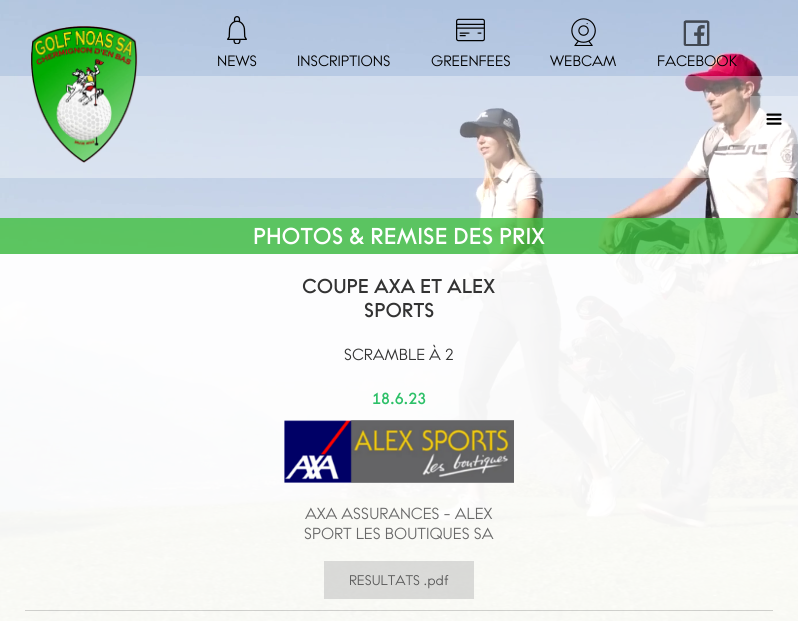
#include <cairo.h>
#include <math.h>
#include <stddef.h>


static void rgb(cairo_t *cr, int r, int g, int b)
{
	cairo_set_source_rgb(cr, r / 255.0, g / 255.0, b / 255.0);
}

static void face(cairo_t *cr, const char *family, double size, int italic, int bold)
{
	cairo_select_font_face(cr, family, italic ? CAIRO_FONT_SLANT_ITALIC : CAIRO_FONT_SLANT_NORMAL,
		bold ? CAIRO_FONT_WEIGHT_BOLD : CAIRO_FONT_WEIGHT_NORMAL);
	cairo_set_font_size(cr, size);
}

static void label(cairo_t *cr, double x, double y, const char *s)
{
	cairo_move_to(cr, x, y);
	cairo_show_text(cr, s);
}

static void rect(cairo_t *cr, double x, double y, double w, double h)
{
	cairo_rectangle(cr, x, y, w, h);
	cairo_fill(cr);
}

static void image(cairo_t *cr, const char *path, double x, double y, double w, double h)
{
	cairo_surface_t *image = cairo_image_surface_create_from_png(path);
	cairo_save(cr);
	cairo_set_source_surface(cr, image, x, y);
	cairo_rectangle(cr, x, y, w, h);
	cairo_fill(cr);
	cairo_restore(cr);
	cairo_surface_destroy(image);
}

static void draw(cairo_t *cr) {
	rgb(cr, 255, 255, 255);
	cairo_paint(cr);
	image(cr, "image0.png", 0, 0, 798, 621);
	cairo_set_source_rgba(cr, 1, 1, 1, 0.36);
	rect(cr, 0, 76, 798, 102);
	image(cr, "image1.png", 31, 26, 107, 137);
	image(cr, "image2.png", 227, 16, 20, 28);
	face(cr, "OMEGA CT", 15, 0, 0);
	rgb(cr, 0, 0, 0);
	label(cr, 217, 66, "NEWS");
	label(cr, 297, 66, "INSCRIPTIONS");
	image(cr, "image3.png", 456, 18, 29, 24);
	label(cr, 431, 66, "GREENFEES");
	image(cr, "image4.png", 571, 18, 25, 28);
	label(cr, 550, 66, "WEBCAM");
	image(cr, "image5.png", 683, 20, 27, 26);
	label(cr, 657, 66, "FACEBOOK");
	cairo_set_source_rgba(cr, 1, 1, 1, 0.31);
	rect(cr, 750, 96, 48, 48);
	image(cr, "image6.png", 766, 113, 16, 12);
	cairo_set_source_rgba(cr, 0.259, 0.753, 0.259, 0.81);
	rect(cr, 0, 218, 798, 36);
	face(cr, "OMEGA CT", 23, 0, 1);
	rgb(cr, 255, 255, 255);
	label(cr, 253, 244, "PHOTOS & REMISE DES PRIX");
	cairo_set_source_rgba(cr, 1, 1, 1, 0.95);
	rect(cr, 0, 254, 798, 367);
	cairo_set_source_rgba(cr, 0, 0, 0, 0.17);
	rect(cr, 25, 610, 748, 1);
	face(cr, "OMEGA CT", 20, 0, 1);
	rgb(cr, 51, 51, 51);
	label(cr, 302, 293, "COUPE AXA ET ALEX");
	label(cr, 364, 317, "SPORTS");
	face(cr, "OMEGA CT", 16, 0, 0);
	label(cr, 344, 360, "SCRAMBLE À 2");
	face(cr, "OMEGA CT", 16, 0, 1);
	rgb(cr, 45, 192, 104);
	label(cr, 372, 404, "18.6.23");
	image(cr, "image7.png", 284, 420, 230, 63);
	face(cr, "OMEGA CT", 16, 0, 0);
	rgb(cr, 105, 105, 105);
	label(cr, 305, 519, "AXA ASSURANCES - ALEX");
	label(cr, 304, 539, "SPORT LES BOUTIQUES SA");
	cairo_set_source_rgba(cr, 0.741, 0.741, 0.741, 0.52);
	rect(cr, 324, 561, 150, 38);
	face(cr, "OMEGA CT", 14, 0, 0);
	rgb(cr, 90, 90, 90);
	label(cr, 349, 585, "RESULTATS .pdf");
}

int main(void) {
	cairo_surface_t *surface = cairo_image_surface_create(CAIRO_FORMAT_RGB24, 798, 621);
	cairo_t *cr = cairo_create(surface);
	cairo_font_options_t *options = cairo_font_options_create();
	cairo_font_options_set_hint_metrics(options, CAIRO_HINT_METRICS_OFF);
	cairo_font_options_set_hint_style(options, CAIRO_HINT_STYLE_NONE);
	cairo_set_font_options(cr, options);
	cairo_set_miter_limit(cr, 4);
	draw(cr);
	cairo_surface_write_to_png(surface, "render.png");
	cairo_font_options_destroy(options);
	cairo_destroy(cr);
	cairo_surface_destroy(surface);
	return 0;
}
